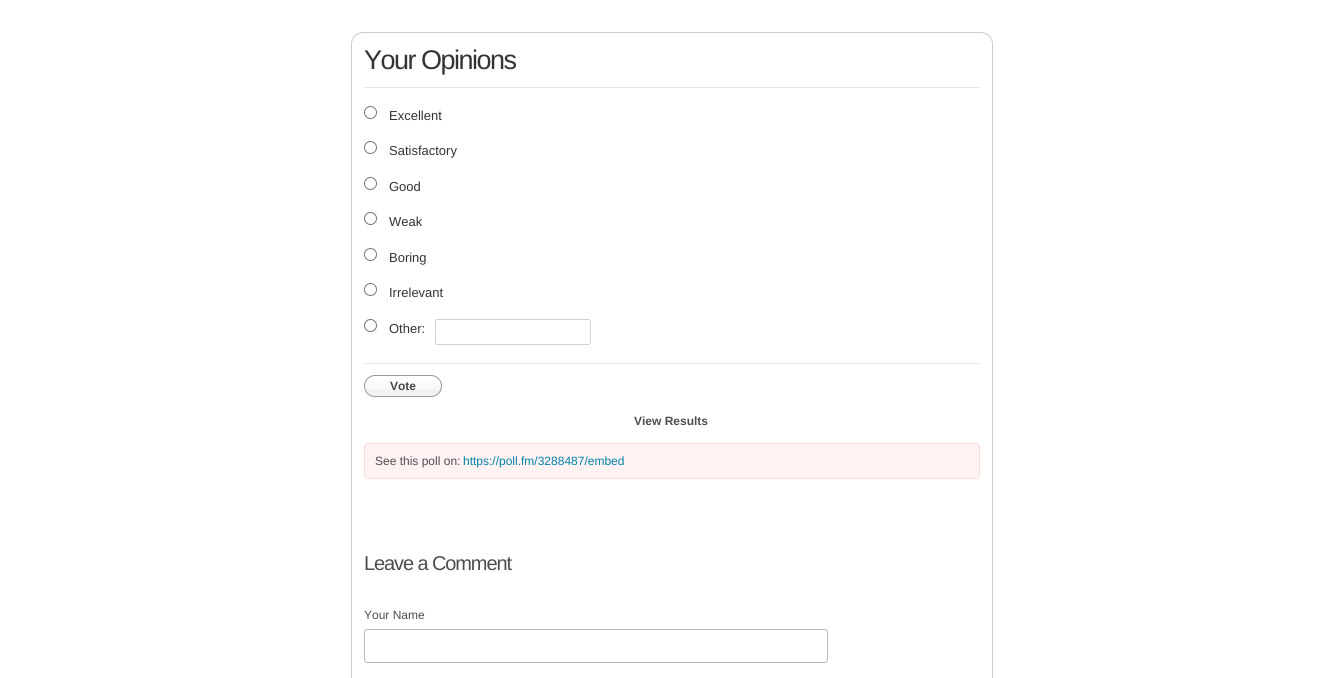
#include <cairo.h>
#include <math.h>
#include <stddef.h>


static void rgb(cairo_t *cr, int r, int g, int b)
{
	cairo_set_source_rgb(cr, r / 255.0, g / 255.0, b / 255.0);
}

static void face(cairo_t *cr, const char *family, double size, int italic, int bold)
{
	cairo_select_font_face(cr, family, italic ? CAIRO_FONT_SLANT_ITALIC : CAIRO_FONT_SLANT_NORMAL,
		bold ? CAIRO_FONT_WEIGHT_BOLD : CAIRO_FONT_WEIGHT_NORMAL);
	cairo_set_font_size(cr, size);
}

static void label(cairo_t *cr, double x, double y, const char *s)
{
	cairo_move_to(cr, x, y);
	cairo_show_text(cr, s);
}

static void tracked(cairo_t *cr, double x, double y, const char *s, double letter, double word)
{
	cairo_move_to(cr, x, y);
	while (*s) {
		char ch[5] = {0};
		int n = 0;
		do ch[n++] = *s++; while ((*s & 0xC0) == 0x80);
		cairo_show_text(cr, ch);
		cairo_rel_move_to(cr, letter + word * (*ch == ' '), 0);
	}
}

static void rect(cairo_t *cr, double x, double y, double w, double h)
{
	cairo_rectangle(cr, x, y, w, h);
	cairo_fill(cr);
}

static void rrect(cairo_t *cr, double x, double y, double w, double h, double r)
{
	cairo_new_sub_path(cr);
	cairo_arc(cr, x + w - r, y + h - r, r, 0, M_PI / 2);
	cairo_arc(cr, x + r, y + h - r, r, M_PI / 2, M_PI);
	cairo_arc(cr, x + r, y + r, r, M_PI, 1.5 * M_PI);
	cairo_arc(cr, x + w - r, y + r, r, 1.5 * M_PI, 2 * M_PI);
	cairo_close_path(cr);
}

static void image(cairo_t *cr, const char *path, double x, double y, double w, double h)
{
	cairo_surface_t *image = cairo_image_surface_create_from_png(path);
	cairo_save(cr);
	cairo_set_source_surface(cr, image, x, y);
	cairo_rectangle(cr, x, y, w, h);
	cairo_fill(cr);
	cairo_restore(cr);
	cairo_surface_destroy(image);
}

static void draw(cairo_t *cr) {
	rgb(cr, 255, 255, 255);
	cairo_paint(cr);
	rrect(cr, 351.5, 32.5, 641, 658, 11.5);
	rgb(cr, 204, 204, 204);
	cairo_set_line_width(cr, 1);
	cairo_stroke(cr);
	face(cr, "Liberation Sans", 27, 0, 0);
	rgb(cr, 51, 51, 51);
	tracked(cr, 364, 69, "Your Opinions", -1.5, 0);
	rgb(cr, 232, 232, 232);
	rect(cr, 364, 87, 616, 1);
	rect(cr, 364, 363, 616, 1);
	cairo_new_path(cr);
	cairo_arc(cr, 370.5, 112.5, 6, 0, 2 * M_PI);
	rgb(cr, 118, 118, 118);
	cairo_stroke(cr);
	face(cr, "Liberation Sans", 13, 0, 0);
	rgb(cr, 51, 51, 51);
	label(cr, 389, 120, "Excellent");
	cairo_new_path(cr);
	cairo_arc(cr, 370.5, 147.5, 6, 0, 2 * M_PI);
	rgb(cr, 118, 118, 118);
	cairo_stroke(cr);
	rgb(cr, 51, 51, 51);
	label(cr, 389, 155, "Satisfactory");
	cairo_new_path(cr);
	cairo_arc(cr, 370.5, 183.5, 6, 0, 2 * M_PI);
	rgb(cr, 118, 118, 118);
	cairo_stroke(cr);
	rgb(cr, 51, 51, 51);
	label(cr, 389, 191, "Good");
	cairo_new_path(cr);
	cairo_arc(cr, 370.5, 218.5, 6, 0, 2 * M_PI);
	rgb(cr, 118, 118, 118);
	cairo_stroke(cr);
	rgb(cr, 51, 51, 51);
	label(cr, 389, 226, "Weak");
	cairo_new_path(cr);
	cairo_arc(cr, 370.5, 254.5, 6, 0, 2 * M_PI);
	rgb(cr, 118, 118, 118);
	cairo_stroke(cr);
	rgb(cr, 51, 51, 51);
	label(cr, 389, 262, "Boring");
	cairo_new_path(cr);
	cairo_arc(cr, 370.5, 289.5, 6, 0, 2 * M_PI);
	rgb(cr, 118, 118, 118);
	cairo_stroke(cr);
	rgb(cr, 51, 51, 51);
	label(cr, 389, 297, "Irrelevant");
	cairo_new_path(cr);
	cairo_arc(cr, 370.5, 325.5, 6, 0, 2 * M_PI);
	rgb(cr, 118, 118, 118);
	cairo_stroke(cr);
	rgb(cr, 51, 51, 51);
	label(cr, 389, 333, "Other:");
	rrect(cr, 435.5, 319.5, 155, 25, 2.5);
	rgb(cr, 209, 209, 209);
	cairo_stroke(cr);
	rgb(cr, 242, 242, 242);
	rrect(cr, 364, 375, 78, 22, 11);
	cairo_fill(cr);
	image(cr, "image0.png", 364, 376, 78, 14);
	rrect(cr, 364.5, 375.5, 77, 21, 10.5);
	rgb(cr, 153, 153, 153);
	cairo_stroke(cr);
	face(cr, "Liberation Sans", 12, 0, 1);
	rgb(cr, 70, 70, 70);
	label(cr, 390, 390, "Vote");
	rgb(cr, 78, 78, 78);
	label(cr, 634, 425, "View Results");
	rgb(cr, 255, 242, 242);
	rrect(cr, 364.5, 443.5, 615, 35, 3.5);
	cairo_fill_preserve(cr);
	rgb(cr, 255, 220, 220);
	cairo_stroke(cr);
	face(cr, "Liberation Sans", 12, 0, 0);
	rgb(cr, 78, 78, 78);
	label(cr, 375, 465, "See this poll on:");
	rgb(cr, 1, 130, 168);
	label(cr, 463, 465, "https://poll.fm/3288487/embed");
	face(cr, "Liberation Sans", 20, 0, 0);
	rgb(cr, 78, 78, 78);
	tracked(cr, 364, 570, "Leave a Comment", -1.1, 0);
	face(cr, "Liberation Sans", 12, 0, 0);
	label(cr, 364, 619, "Your Name");
	rrect(cr, 364.5, 629.5, 463, 33, 2.5);
	rgb(cr, 186, 185, 185);
	cairo_stroke(cr);
}

int main(void) {
	cairo_surface_t *surface = cairo_image_surface_create(CAIRO_FORMAT_RGB24, 1341, 678);
	cairo_t *cr = cairo_create(surface);
	cairo_font_options_t *options = cairo_font_options_create();
	cairo_font_options_set_hint_metrics(options, CAIRO_HINT_METRICS_OFF);
	cairo_font_options_set_hint_style(options, CAIRO_HINT_STYLE_NONE);
	cairo_set_font_options(cr, options);
	cairo_set_miter_limit(cr, 4);
	draw(cr);
	cairo_surface_write_to_png(surface, "render.png");
	cairo_font_options_destroy(options);
	cairo_destroy(cr);
	cairo_surface_destroy(surface);
	return 0;
}
